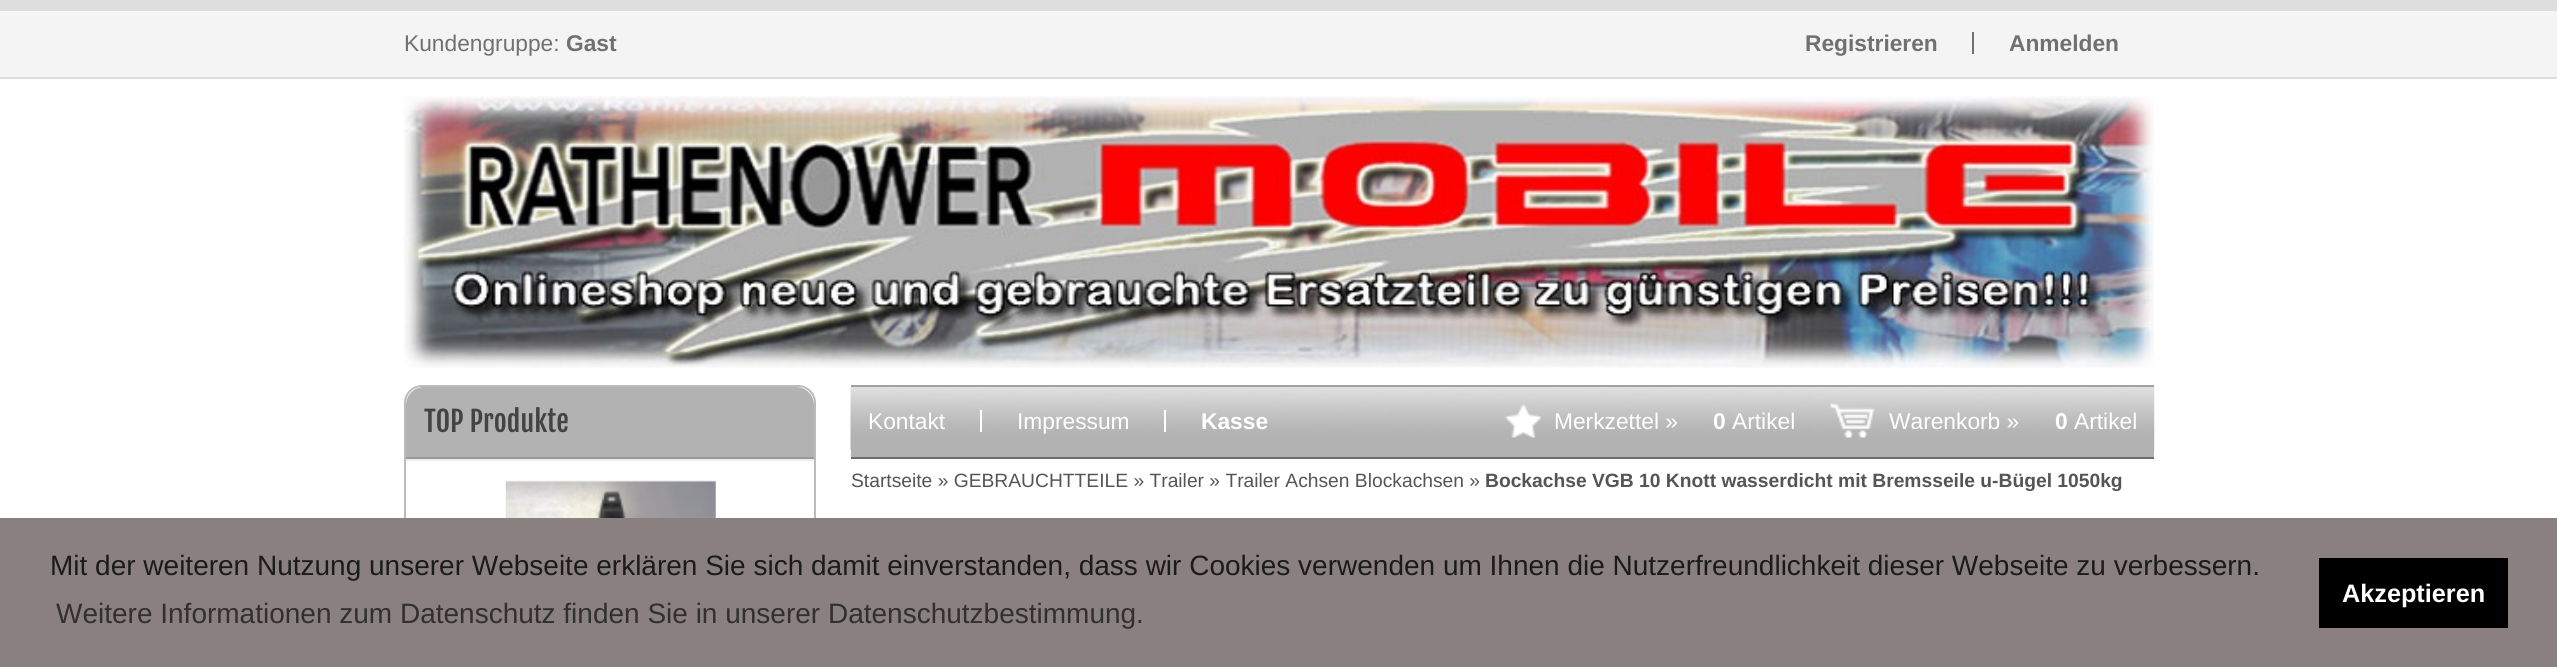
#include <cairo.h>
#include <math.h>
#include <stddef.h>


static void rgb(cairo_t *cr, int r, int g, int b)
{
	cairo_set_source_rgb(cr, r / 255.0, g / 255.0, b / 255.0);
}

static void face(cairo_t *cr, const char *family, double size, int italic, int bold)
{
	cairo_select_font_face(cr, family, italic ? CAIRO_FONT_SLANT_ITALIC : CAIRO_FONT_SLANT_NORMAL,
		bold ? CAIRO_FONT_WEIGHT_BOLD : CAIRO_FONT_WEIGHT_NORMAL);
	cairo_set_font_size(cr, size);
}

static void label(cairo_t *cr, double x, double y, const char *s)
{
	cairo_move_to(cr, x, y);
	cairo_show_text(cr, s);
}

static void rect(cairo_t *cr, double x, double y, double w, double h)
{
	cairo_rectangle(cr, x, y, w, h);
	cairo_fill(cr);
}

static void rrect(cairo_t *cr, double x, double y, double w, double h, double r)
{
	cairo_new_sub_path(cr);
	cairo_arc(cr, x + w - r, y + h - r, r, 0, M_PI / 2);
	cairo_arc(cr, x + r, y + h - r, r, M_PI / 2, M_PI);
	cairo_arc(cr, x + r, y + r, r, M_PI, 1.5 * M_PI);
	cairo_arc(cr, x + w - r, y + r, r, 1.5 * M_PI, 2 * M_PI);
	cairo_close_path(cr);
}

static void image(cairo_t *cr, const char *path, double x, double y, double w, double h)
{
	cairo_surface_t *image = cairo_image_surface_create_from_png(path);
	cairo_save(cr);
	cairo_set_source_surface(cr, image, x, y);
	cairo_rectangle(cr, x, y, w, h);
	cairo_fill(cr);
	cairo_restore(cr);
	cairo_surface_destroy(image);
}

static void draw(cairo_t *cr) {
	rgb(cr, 255, 255, 255);
	cairo_paint(cr);
	rgb(cr, 244, 244, 244);
	rect(cr, 0, 11, 2557, 66);
	rgb(cr, 222, 222, 222);
	rect(cr, 0, 0, 2557, 11);
	rect(cr, 0, 77, 2557, 2);
	face(cr, "Arimo", 22.75, 0, 0);
	rgb(cr, 112, 112, 112);
	label(cr, 404, 51, "Kundengruppe:");
	face(cr, "Arimo", 22.75, 0, 1);
	label(cr, 566, 51, "Gast");
	label(cr, 1805, 51, "Registrieren");
	rect(cr, 1972, 32, 2, 22);
	label(cr, 2009, 51, "Anmelden");
	image(cr, "image0.png", 404, 96, 1750, 272);
	rrect(cr, 405, 386, 410, 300, 17);
	rgb(cr, 187, 187, 187);
	cairo_stroke(cr);
	rgb(cr, 178, 178, 178);
	cairo_new_path(cr);
	cairo_move_to(cr, 424, 387);
	cairo_line_to(cr, 796, 387);
	cairo_curve_to(cr, 806, 387, 814, 395, 814, 405);
	cairo_line_to(cr, 814, 457);
	cairo_line_to(cr, 406, 457);
	cairo_line_to(cr, 406, 405);
	cairo_curve_to(cr, 406, 395, 414, 387, 424, 387);
	cairo_close_path(cr);
	cairo_fill(cr);
	face(cr, "Fjalla One", 28, 0, 0);
	rgb(cr, 67, 67, 67);
	label(cr, 424, 432, "TOP Produkte");
	rgb(cr, 238, 238, 238);
	rect(cr, 406, 459, 408, 2);
	rgb(cr, 152, 152, 152);
	rect(cr, 406, 457, 408, 2);
	image(cr, "image1.png", 505, 480, 211, 38);
	rgb(cr, 178, 178, 178);
	rect(cr, 851, 449, 1303, 8);
	image(cr, "image2.png", 850, 386, 1305, 64);
	rgb(cr, 161, 161, 161);
	rect(cr, 851, 385, 1303, 2);
	rgb(cr, 109, 109, 109);
	rect(cr, 851, 457, 1303, 2);
	rgb(cr, 255, 255, 255);
	rect(cr, 980, 410, 2, 22);
	face(cr, "Arimo", 22.75, 0, 0);
	label(cr, 868, 429, "Kontakt");
	rect(cr, 1164, 410, 2, 22);
	label(cr, 1017, 429, "Impressum");
	face(cr, "Arimo", 22.75, 0, 1);
	label(cr, 1201, 429, "Kasse");
	image(cr, "image3.png", 1505, 404, 37, 34);
	face(cr, "Arimo", 22.75, 0, 0);
	label(cr, 1554, 429, "Merkzettel »");
	face(cr, "Arimo", 22.75, 0, 1);
	label(cr, 1713, 429, "0");
	face(cr, "Arimo", 22.75, 0, 0);
	label(cr, 1732, 429, "Artikel");
	image(cr, "image4.png", 1830, 402, 45, 36);
	label(cr, 1889, 429, "Warenkorb »");
	face(cr, "Arimo", 22.75, 0, 1);
	label(cr, 2055, 429, "0");
	face(cr, "Arimo", 22.75, 0, 0);
	label(cr, 2074, 429, "Artikel");
	face(cr, "Arimo", 19.25, 0, 0);
	rgb(cr, 85, 85, 85);
	label(cr, 851, 487, "Startseite » GEBRAUCHTTEILE » Trailer » Trailer Achsen Blockachsen »");
	face(cr, "Arimo", 19.25, 0, 1);
	label(cr, 1485, 487, "Bockachse VGB 10 Knott wasserdicht mit Bremsseile u-Bügel 1050kg");
	rgb(cr, 138, 128, 128);
	rect(cr, 0, 518, 2557, 149);
	face(cr, "Liberation Sans", 28, 0, 0);
	rgb(cr, 27, 27, 27);
	label(cr, 50, 575, "Mit der weiteren Nutzung unserer Webseite erklären Sie sich damit einverstanden, dass wir Cookies verwenden um Ihnen die Nutzerfreundlichkeit dieser Webseite zu verbessern.");
	rgb(cr, 49, 47, 47);
	label(cr, 56, 623, "Weitere Informationen zum Datenschutz finden Sie in unserer Datenschutzbestimmung.");
	rgb(cr, 0, 0, 0);
	rect(cr, 2319, 558, 189, 70);
	face(cr, "Liberation Sans", 25.25, 0, 1);
	rgb(cr, 255, 255, 255);
	label(cr, 2342, 602, "Akzeptieren");
}

int main(void) {
	cairo_surface_t *surface = cairo_image_surface_create(CAIRO_FORMAT_RGB24, 2557, 667);
	cairo_t *cr = cairo_create(surface);
	cairo_font_options_t *options = cairo_font_options_create();
	cairo_font_options_set_hint_metrics(options, CAIRO_HINT_METRICS_OFF);
	cairo_font_options_set_hint_style(options, CAIRO_HINT_STYLE_NONE);
	cairo_set_font_options(cr, options);
	cairo_set_miter_limit(cr, 4);
	draw(cr);
	cairo_surface_write_to_png(surface, "render.png");
	cairo_font_options_destroy(options);
	cairo_destroy(cr);
	cairo_surface_destroy(surface);
	return 0;
}
